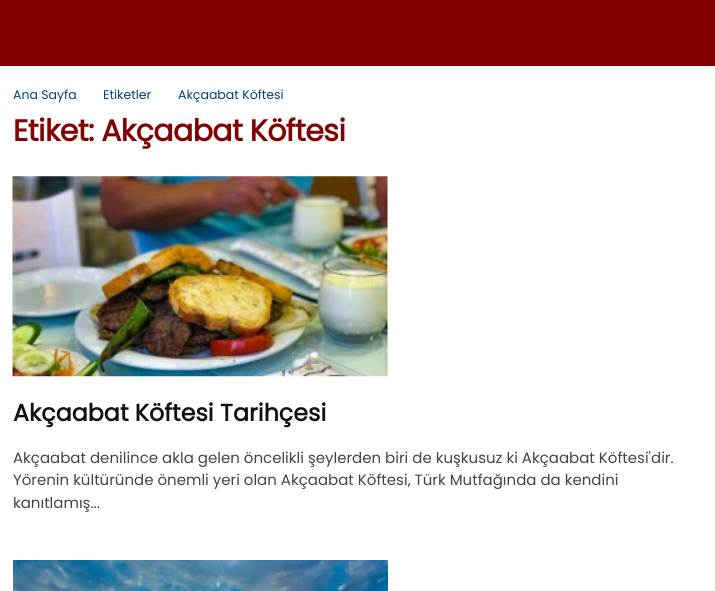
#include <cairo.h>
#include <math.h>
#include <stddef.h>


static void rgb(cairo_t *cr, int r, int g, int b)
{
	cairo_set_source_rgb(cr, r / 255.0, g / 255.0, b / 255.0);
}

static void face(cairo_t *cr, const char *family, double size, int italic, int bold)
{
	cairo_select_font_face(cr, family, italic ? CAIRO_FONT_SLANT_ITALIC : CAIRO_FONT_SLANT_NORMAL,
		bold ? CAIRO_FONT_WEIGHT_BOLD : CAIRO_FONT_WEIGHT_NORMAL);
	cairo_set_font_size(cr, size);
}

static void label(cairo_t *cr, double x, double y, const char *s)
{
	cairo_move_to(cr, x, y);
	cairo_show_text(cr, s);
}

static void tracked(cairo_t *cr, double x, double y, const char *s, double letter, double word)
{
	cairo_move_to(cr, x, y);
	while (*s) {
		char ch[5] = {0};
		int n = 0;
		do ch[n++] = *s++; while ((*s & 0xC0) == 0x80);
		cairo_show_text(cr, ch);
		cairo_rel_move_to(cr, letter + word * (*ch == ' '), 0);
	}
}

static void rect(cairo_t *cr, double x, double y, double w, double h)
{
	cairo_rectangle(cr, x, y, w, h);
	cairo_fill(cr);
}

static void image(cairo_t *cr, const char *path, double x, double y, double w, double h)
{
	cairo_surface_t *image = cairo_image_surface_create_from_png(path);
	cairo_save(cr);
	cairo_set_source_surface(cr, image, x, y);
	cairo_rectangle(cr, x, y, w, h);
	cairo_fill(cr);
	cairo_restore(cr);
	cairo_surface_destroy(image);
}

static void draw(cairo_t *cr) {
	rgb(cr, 255, 255, 255);
	cairo_paint(cr);
	rgb(cr, 130, 0, 0);
	rect(cr, 0, 0, 715, 66);
	face(cr, "Poppins", 12.5, 0, 0);
	rgb(cr, 0, 64, 128);
	label(cr, 13, 99, "Ana Sayfa");
	label(cr, 103, 99, "Etiketler");
	label(cr, 178, 99, "Akçaabat Köftesi");
	face(cr, "Poppins", 30, 0, 1);
	rgb(cr, 130, 0, 0);
	tracked(cr, 13, 141, "Etiket: Akçaabat Köftesi", -0.6, 0);
	image(cr, "image0.png", 12, 176, 376, 201);
	face(cr, "Poppins", 23.75, 0, 1);
	rgb(cr, 17, 17, 17);
	label(cr, 13, 421, "Akçaabat Köftesi Tarihçesi");
	face(cr, "Poppins", 15, 0, 0);
	rgb(cr, 68, 68, 68);
	label(cr, 13, 463, "Akçaabat denilince akla gelen öncelikli şeylerden biri de kuşkusuz ki Akçaabat Köftesi'dir.");
	label(cr, 13, 485, "Yörenin kültüründe önemli yeri olan Akçaabat Köftesi, Türk Mutfağında da kendini");
	label(cr, 13, 508, "kanıtlamış...");
	image(cr, "image1.png", 13, 560, 375, 31);
}

int main(void) {
	cairo_surface_t *surface = cairo_image_surface_create(CAIRO_FORMAT_RGB24, 715, 591);
	cairo_t *cr = cairo_create(surface);
	cairo_font_options_t *options = cairo_font_options_create();
	cairo_font_options_set_hint_metrics(options, CAIRO_HINT_METRICS_OFF);
	cairo_font_options_set_hint_style(options, CAIRO_HINT_STYLE_NONE);
	cairo_set_font_options(cr, options);
	cairo_set_miter_limit(cr, 4);
	draw(cr);
	cairo_surface_write_to_png(surface, "render.png");
	cairo_font_options_destroy(options);
	cairo_destroy(cr);
	cairo_surface_destroy(surface);
	return 0;
}
